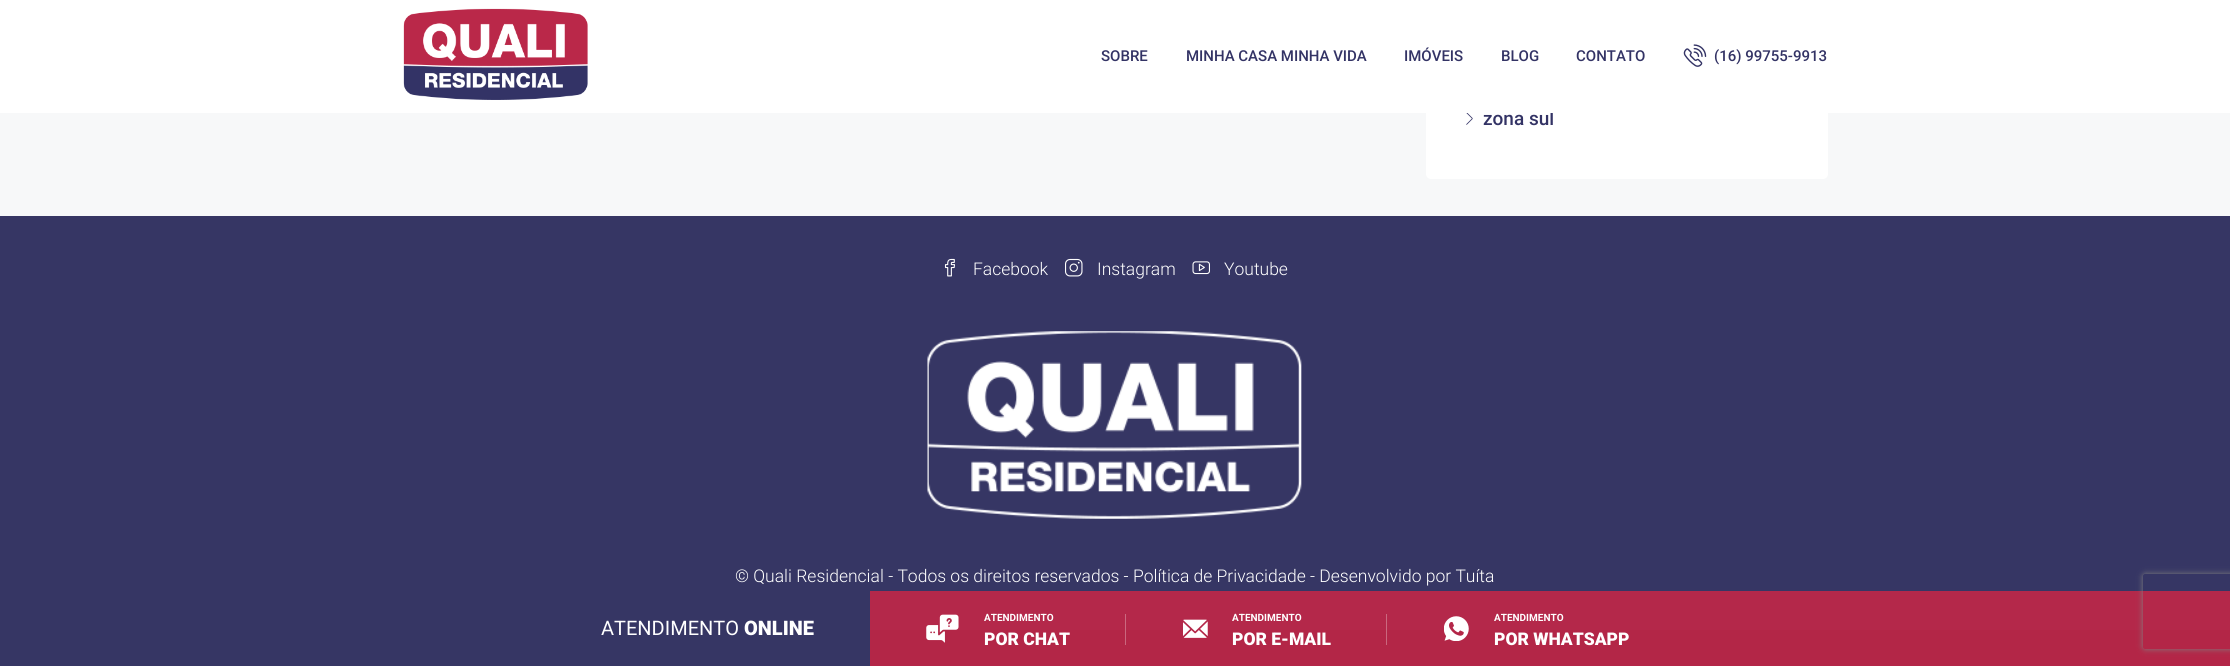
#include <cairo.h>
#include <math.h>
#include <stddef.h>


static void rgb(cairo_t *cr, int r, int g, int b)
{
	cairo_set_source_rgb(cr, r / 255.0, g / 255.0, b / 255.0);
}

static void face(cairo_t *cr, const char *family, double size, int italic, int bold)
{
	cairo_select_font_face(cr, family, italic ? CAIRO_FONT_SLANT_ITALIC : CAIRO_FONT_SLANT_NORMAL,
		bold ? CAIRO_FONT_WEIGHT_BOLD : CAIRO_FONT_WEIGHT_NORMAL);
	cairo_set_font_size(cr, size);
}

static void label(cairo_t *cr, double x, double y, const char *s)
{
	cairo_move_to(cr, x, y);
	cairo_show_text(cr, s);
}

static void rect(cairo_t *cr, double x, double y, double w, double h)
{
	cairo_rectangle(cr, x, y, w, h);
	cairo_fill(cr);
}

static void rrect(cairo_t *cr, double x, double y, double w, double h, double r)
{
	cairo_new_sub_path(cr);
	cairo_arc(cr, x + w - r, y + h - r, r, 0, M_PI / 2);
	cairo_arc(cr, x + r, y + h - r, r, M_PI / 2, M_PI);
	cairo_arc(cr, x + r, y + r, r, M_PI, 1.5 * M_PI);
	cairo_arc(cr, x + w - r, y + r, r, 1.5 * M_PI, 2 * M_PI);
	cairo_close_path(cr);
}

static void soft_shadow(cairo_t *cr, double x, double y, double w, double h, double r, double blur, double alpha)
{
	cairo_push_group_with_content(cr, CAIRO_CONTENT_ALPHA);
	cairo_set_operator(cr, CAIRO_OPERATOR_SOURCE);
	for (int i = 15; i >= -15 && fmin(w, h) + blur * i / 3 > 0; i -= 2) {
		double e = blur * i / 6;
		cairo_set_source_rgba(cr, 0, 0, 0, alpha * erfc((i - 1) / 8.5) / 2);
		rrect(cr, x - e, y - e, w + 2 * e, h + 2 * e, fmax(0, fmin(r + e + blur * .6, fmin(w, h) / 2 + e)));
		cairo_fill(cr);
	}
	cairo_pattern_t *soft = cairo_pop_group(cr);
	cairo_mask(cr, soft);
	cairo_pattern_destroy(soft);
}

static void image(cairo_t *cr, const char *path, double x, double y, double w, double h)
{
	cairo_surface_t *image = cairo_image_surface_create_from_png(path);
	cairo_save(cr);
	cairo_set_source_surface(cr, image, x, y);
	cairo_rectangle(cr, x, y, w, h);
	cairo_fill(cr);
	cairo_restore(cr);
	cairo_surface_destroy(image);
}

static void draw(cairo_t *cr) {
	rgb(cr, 247, 248, 249);
	cairo_paint(cr);
	rgb(cr, 255, 255, 255);
	rrect(cr, 1426, -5, 402, 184, 5);
	cairo_fill(cr);
	face(cr, "Roboto Medium", 19, 0, 0);
	rgb(cr, 51, 51, 101);
	label(cr, 1483, 125, "zona sul");
	rgb(cr, 255, 255, 255);
	rect(cr, 0, 0, 2230, 113);
	image(cr, "image0.png", 403, 8, 185, 92);
	face(cr, "Roboto Medium", 15, 0, 0);
	rgb(cr, 51, 51, 101);
	label(cr, 1101, 61, "SOBRE");
	label(cr, 1186, 61, "MINHA CASA MINHA VIDA");
	label(cr, 1404, 61, "IMÓVEIS");
	label(cr, 1501, 61, "BLOG");
	label(cr, 1576, 61, "CONTATO");
	image(cr, "image1.png", 1683, 44, 24, 23);
	label(cr, 1714, 61, "(16) 99755-9913");
	image(cr, "image2.png", 1466, 113, 7, 12);
	rgb(cr, 54, 54, 100);
	rect(cr, 0, 216, 2230, 375);
	rgb(cr, 180, 40, 74);
	rect(cr, 870, 591, 1360, 39);
	rgb(cr, 203, 105, 128);
	rect(cr, 1386, 614, 1, 16);
	rect(cr, 1125, 614, 1, 16);
	image(cr, "image3.png", 944, 258, 11, 19);
	face(cr, "Roboto Light", 17.5, 0, 0);
	rgb(cr, 255, 255, 255);
	label(cr, 973, 275, "Facebook");
	image(cr, "image4.png", 1065, 258, 18, 19);
	label(cr, 1097, 275, "Instagram");
	image(cr, "image5.png", 1192, 261, 18, 14);
	label(cr, 1224, 275, "Youtube");
	image(cr, "image6.png", 927, 331, 375, 188);
	label(cr, 735, 582, "© Quali Residencial - Todos os direitos reservados - Política de Privacidade - Desenvolvido por Tuíta");
	rgb(cr, 179, 38, 71);
	rect(cr, 870, 630, 1360, 36);
	rgb(cr, 202, 103, 126);
	rect(cr, 1386, 630, 1, 15);
	rect(cr, 1125, 630, 1, 15);
	rgb(cr, 54, 54, 100);
	rect(cr, 0, 591, 870, 75);
	face(cr, "Roboto", 20, 0, 0);
	rgb(cr, 255, 255, 255);
	label(cr, 601, 635, "ATENDIMENTO");
	face(cr, "Roboto Black", 20, 0, 0);
	label(cr, 744, 635, "ONLINE");
	image(cr, "image7.png", 926, 614, 33, 29);
	face(cr, "Roboto", 10, 0, 1);
	label(cr, 984, 621, "ATENDIMENTO");
	face(cr, "Roboto Black", 17.5, 0, 0);
	label(cr, 984, 645, "POR CHAT");
	image(cr, "image8.png", 1183, 619, 25, 19);
	face(cr, "Roboto", 10, 0, 1);
	label(cr, 1232, 621, "ATENDIMENTO");
	face(cr, "Roboto Black", 17.5, 0, 0);
	label(cr, 1232, 645, "POR E-MAIL");
	image(cr, "image9.png", 1444, 616, 25, 25);
	face(cr, "Roboto", 10, 0, 1);
	label(cr, 1494, 621, "ATENDIMENTO");
	face(cr, "Roboto Black", 17.5, 0, 0);
	label(cr, 1494, 645, "POR WHATSAPP");
	cairo_save(cr);
	cairo_set_fill_rule(cr, CAIRO_FILL_RULE_EVEN_ODD);
	cairo_new_path(cr);
	cairo_move_to(cr, 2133, 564);
	cairo_line_to(cr, 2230, 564);
	cairo_line_to(cr, 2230, 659);
	cairo_line_to(cr, 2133, 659);
	cairo_close_path(cr);
	cairo_move_to(cr, 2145.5, 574);
	cairo_line_to(cr, 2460.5, 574);
	cairo_curve_to(cr, 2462, 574, 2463, 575, 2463, 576.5);
	cairo_line_to(cr, 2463, 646.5);
	cairo_curve_to(cr, 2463, 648, 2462, 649, 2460.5, 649);
	cairo_line_to(cr, 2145.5, 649);
	cairo_curve_to(cr, 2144, 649, 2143, 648, 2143, 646.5);
	cairo_line_to(cr, 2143, 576.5);
	cairo_curve_to(cr, 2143, 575, 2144, 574, 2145.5, 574);
	cairo_close_path(cr);
	cairo_clip(cr);
	rgb(cr, 128, 128, 128);
	soft_shadow(cr, 2143, 574, 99, 75, 2.5, 3, 1);
	cairo_restore(cr);
}

int main(void) {
	cairo_surface_t *surface = cairo_image_surface_create(CAIRO_FORMAT_RGB24, 2230, 666);
	cairo_t *cr = cairo_create(surface);
	cairo_font_options_t *options = cairo_font_options_create();
	cairo_font_options_set_hint_metrics(options, CAIRO_HINT_METRICS_OFF);
	cairo_font_options_set_hint_style(options, CAIRO_HINT_STYLE_NONE);
	cairo_set_font_options(cr, options);
	cairo_set_miter_limit(cr, 4);
	draw(cr);
	cairo_surface_write_to_png(surface, "render.png");
	cairo_font_options_destroy(options);
	cairo_destroy(cr);
	cairo_surface_destroy(surface);
	return 0;
}
